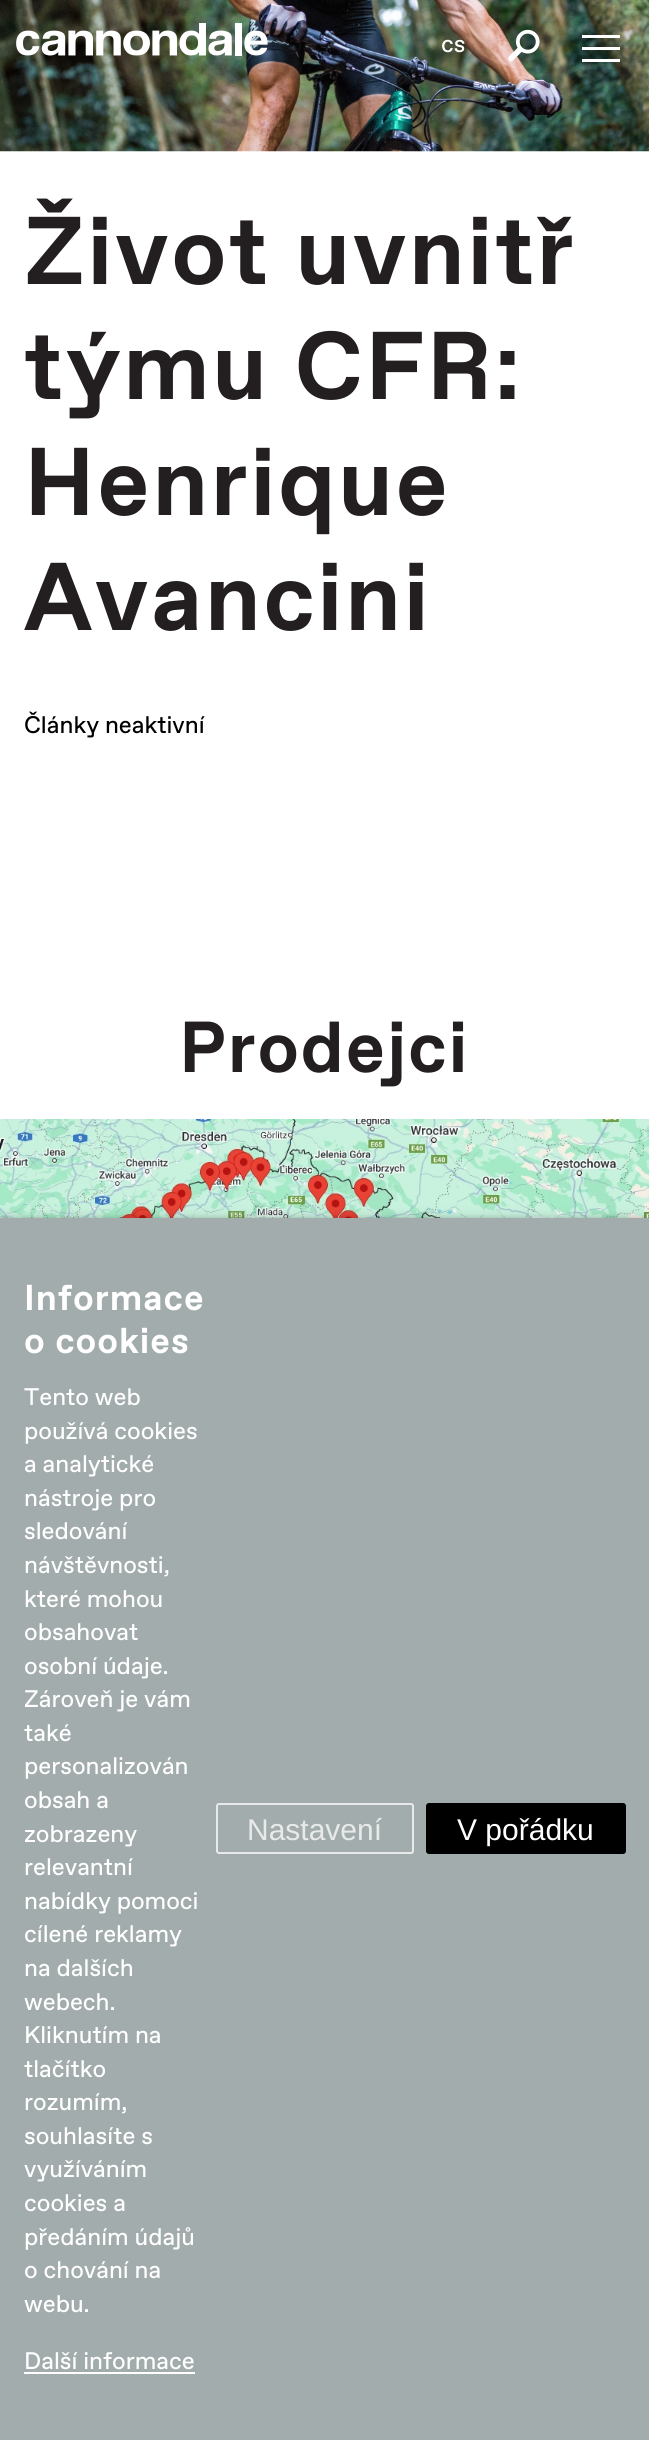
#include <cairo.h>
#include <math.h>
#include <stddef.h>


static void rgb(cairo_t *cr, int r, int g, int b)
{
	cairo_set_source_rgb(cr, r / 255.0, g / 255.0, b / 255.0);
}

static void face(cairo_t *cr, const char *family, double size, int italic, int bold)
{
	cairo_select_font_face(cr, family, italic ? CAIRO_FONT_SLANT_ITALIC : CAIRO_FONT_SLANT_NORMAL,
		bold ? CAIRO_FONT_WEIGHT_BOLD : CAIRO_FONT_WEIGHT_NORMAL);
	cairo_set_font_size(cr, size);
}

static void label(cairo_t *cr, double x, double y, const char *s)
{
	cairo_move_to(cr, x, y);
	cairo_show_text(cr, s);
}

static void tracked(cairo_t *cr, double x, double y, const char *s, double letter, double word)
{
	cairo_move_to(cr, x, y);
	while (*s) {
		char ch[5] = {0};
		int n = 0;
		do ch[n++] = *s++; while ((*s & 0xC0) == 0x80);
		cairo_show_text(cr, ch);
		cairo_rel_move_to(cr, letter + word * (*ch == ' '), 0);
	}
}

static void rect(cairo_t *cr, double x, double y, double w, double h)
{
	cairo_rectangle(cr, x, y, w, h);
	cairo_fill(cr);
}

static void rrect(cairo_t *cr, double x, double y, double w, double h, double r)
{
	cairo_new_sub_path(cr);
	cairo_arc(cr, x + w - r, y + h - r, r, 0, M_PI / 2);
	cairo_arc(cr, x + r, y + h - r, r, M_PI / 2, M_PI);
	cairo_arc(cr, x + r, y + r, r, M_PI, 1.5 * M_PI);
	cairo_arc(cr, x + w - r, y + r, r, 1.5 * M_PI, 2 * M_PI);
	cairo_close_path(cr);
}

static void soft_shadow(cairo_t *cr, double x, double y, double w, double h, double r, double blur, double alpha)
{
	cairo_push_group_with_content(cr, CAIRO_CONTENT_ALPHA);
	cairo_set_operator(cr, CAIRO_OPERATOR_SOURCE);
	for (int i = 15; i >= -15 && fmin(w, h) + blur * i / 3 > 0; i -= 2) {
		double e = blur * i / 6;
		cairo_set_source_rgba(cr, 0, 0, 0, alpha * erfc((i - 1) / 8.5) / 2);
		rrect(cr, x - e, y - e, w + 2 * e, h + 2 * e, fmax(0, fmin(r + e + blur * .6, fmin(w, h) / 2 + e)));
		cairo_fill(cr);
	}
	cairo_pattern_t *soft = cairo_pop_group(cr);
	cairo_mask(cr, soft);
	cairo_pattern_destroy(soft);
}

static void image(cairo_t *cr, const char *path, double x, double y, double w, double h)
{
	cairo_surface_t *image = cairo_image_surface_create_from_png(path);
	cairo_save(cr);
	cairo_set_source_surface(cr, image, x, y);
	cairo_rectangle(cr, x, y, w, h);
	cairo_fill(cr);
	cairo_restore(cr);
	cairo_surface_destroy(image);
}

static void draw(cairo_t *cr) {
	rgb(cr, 255, 255, 255);
	cairo_paint(cr);
	image(cr, "image0.png", 0, 0, 649, 152);
	image(cr, "image1.png", 16, 23, 253, 33);
	face(cr, "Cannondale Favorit", 24, 0, 0);
	rgb(cr, 255, 255, 255);
	label(cr, 441, 52, "cs");
	image(cr, "image2.png", 508, 29, 32, 33);
	rect(cr, 582, 35, 38, 3);
	rect(cr, 582, 47, 38, 3);
	rect(cr, 582, 59, 38, 3);
	face(cr, "Cannondale Favorit", 96, 0, 1);
	rgb(cr, 35, 31, 32);
	tracked(cr, 24, 284, "Život uvnitř", 2.4, 0);
	tracked(cr, 24, 399, "týmu CFR:", 2.4, 0);
	tracked(cr, 24, 515, "Henrique", 2.4, 0);
	tracked(cr, 24, 630, "Avancini", 2.4, 0);
	face(cr, "Cannondale Favorit", 24, 0, 0);
	rgb(cr, 0, 0, 0);
	label(cr, 24, 733, "Články neaktivní");
	face(cr, "Cannondale Favorit", 72, 0, 1);
	rgb(cr, 35, 31, 32);
	tracked(cr, 179, 1072, "Prodejci", 1.75, 0);
	image(cr, "image3.png", 0, 1119, 649, 99);
	rgb(cr, 0, 0, 0);
	soft_shadow(cr, 0, 1221, 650, 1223, 0, 7.5, 0.22);
	soft_shadow(cr, 0, 1221, 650, 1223, 0, 4, 0.32);
	rgb(cr, 163, 172, 172);
	rect(cr, 0, 1218, 649, 1222);
	face(cr, "Cannondale Favorit", 36, 0, 1);
	rgb(cr, 255, 255, 255);
	tracked(cr, 24, 1310, "Informace", 1, 0);
	tracked(cr, 24, 1353, "o cookies", 1, 0);
	face(cr, "Cannondale Favorit", 24, 0, 0);
	label(cr, 24, 1405, "Tento web");
	label(cr, 24, 1439, "používá cookies");
	label(cr, 24, 1472, "a analytické");
	label(cr, 24, 1506, "nástroje pro");
	label(cr, 24, 1539, "sledování");
	label(cr, 24, 1573, "návštěvnosti,");
	label(cr, 24, 1607, "které mohou");
	label(cr, 24, 1640, "obsahovat");
	label(cr, 24, 1674, "osobní údaje.");
	label(cr, 24, 1707, "Zároveň je vám");
	label(cr, 24, 1741, "také");
	label(cr, 24, 1774, "personalizován");
	label(cr, 24, 1808, "obsah a");
	label(cr, 24, 1842, "zobrazeny");
	label(cr, 24, 1875, "relevantní");
	label(cr, 24, 1909, "nabídky pomoci");
	label(cr, 24, 1942, "cílené reklamy");
	label(cr, 24, 1976, "na dalších");
	label(cr, 24, 2010, "webech.");
	label(cr, 24, 2043, "Kliknutím na");
	label(cr, 24, 2077, "tlačítko");
	label(cr, 24, 2110, "rozumím,");
	label(cr, 24, 2144, "souhlasíte s");
	label(cr, 24, 2177, "využíváním");
	label(cr, 24, 2211, "cookies a");
	label(cr, 24, 2245, "předáním údajů");
	label(cr, 24, 2278, "o chování na");
	label(cr, 24, 2312, "webu.");
	label(cr, 24, 2369, "Další informace");
	rect(cr, 24, 2372, 171, 2);
	rrect(cr, 217, 1804, 196, 49, 2);
	rgb(cr, 232, 234, 234);
	cairo_stroke(cr);
	face(cr, "Liberation Sans", 30, 0, 0);
	label(cr, 247, 1840, "Nastavení");
	rgb(cr, 0, 0, 0);
	rrect(cr, 427, 1804, 198, 49, 2);
	cairo_fill_preserve(cr);
	cairo_stroke(cr);
	rgb(cr, 255, 255, 255);
	label(cr, 457, 1840, "V pořádku");
}

int main(void) {
	cairo_surface_t *surface = cairo_image_surface_create(CAIRO_FORMAT_RGB24, 649, 2440);
	cairo_t *cr = cairo_create(surface);
	cairo_font_options_t *options = cairo_font_options_create();
	cairo_font_options_set_hint_metrics(options, CAIRO_HINT_METRICS_OFF);
	cairo_font_options_set_hint_style(options, CAIRO_HINT_STYLE_NONE);
	cairo_set_font_options(cr, options);
	cairo_set_miter_limit(cr, 4);
	draw(cr);
	cairo_surface_write_to_png(surface, "render.png");
	cairo_font_options_destroy(options);
	cairo_destroy(cr);
	cairo_surface_destroy(surface);
	return 0;
}
